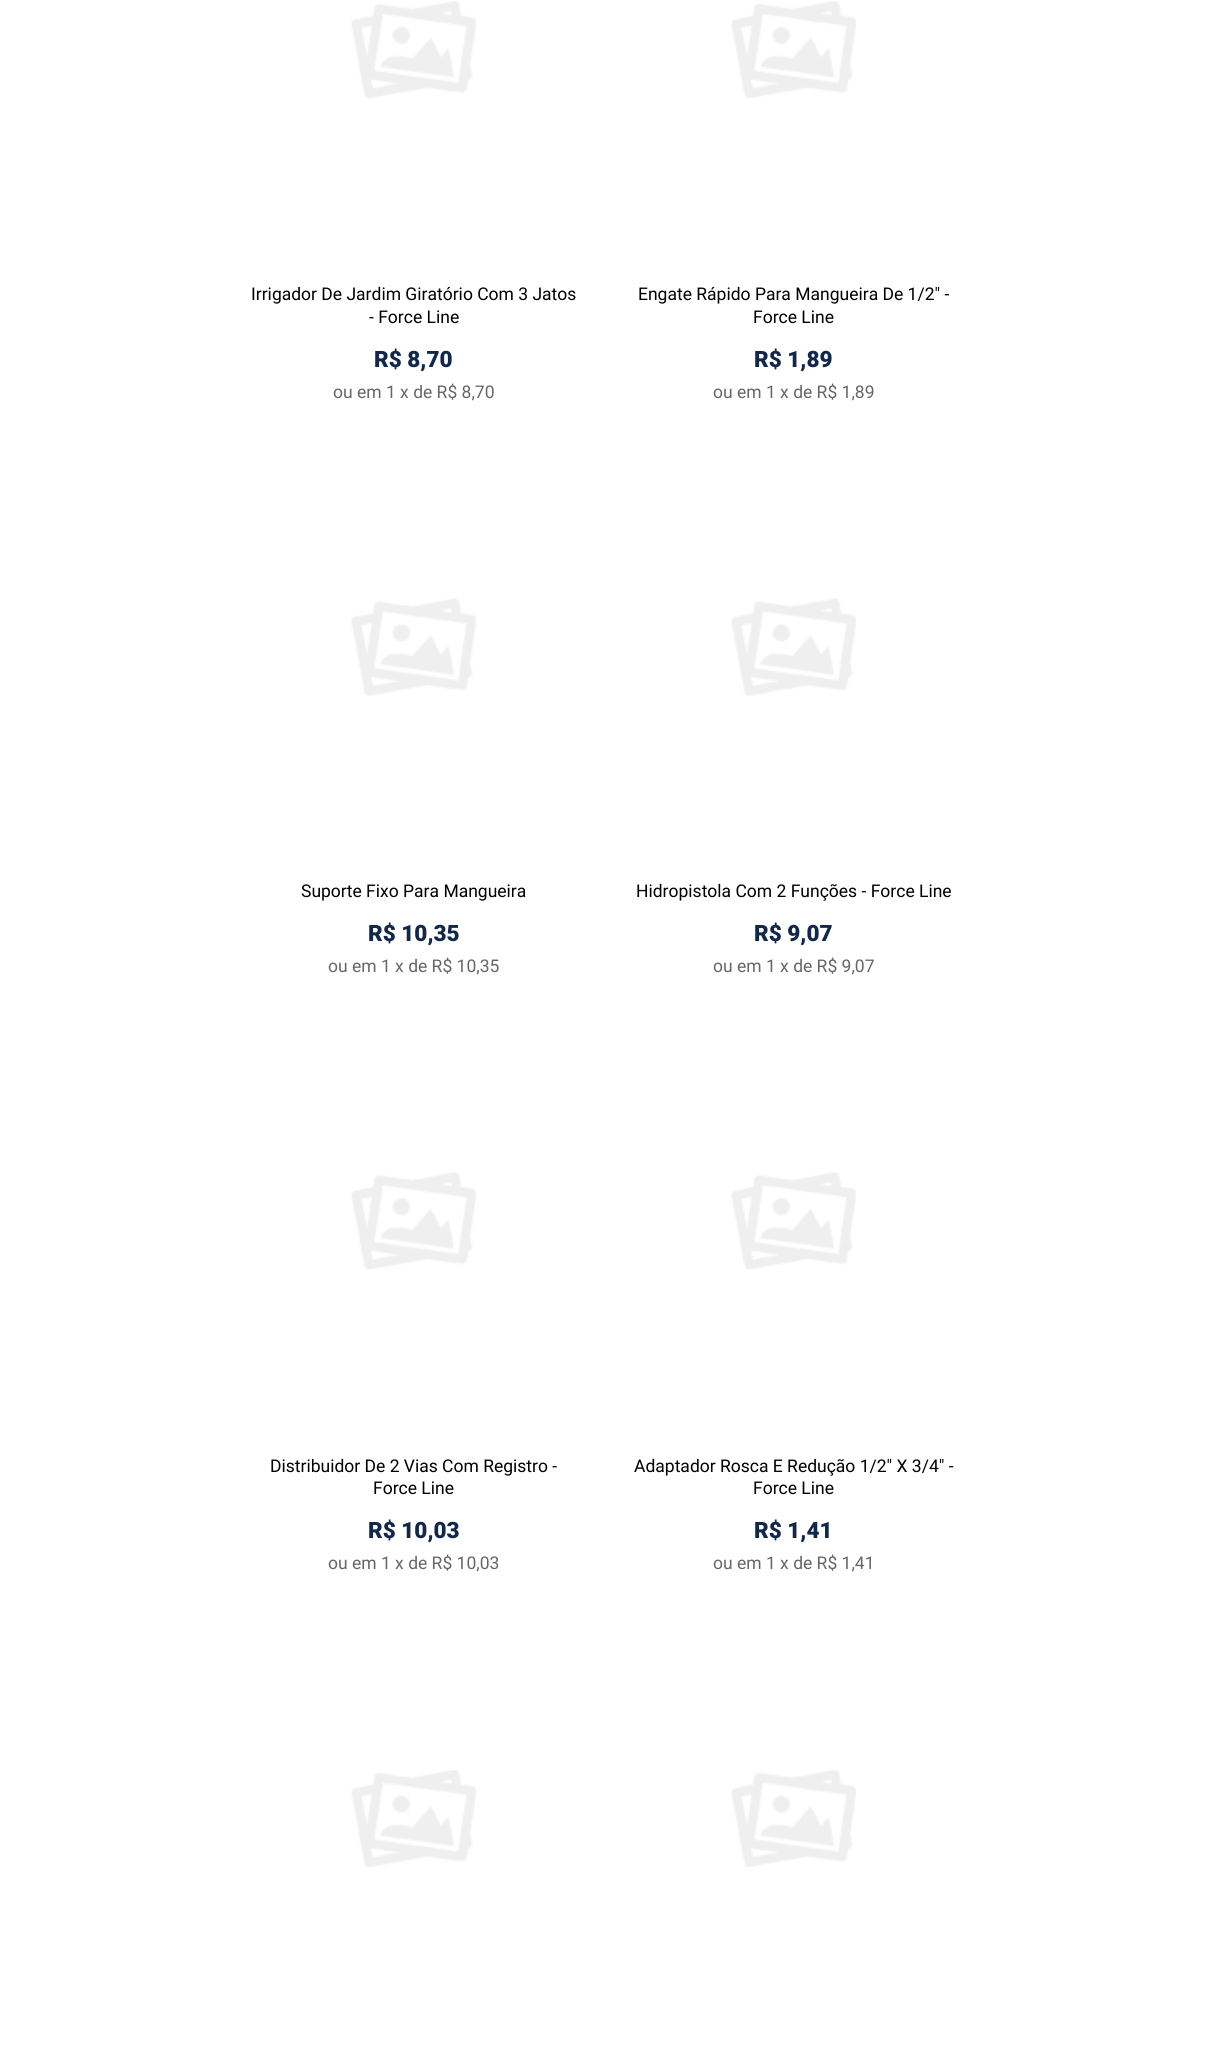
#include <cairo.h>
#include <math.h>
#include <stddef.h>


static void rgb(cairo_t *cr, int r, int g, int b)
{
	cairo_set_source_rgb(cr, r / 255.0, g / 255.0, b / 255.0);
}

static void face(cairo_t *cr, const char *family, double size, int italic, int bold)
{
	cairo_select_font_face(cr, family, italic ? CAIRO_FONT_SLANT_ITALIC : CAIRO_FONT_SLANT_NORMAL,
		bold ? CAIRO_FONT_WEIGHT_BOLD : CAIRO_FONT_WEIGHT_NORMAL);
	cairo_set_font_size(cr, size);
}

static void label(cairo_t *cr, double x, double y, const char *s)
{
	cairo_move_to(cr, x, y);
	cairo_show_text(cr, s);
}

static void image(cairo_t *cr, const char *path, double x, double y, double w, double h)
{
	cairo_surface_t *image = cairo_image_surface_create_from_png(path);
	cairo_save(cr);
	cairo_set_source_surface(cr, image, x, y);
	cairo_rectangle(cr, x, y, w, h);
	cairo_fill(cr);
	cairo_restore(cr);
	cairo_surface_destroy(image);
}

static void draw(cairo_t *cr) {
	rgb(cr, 255, 255, 255);
	cairo_paint(cr);
	image(cr, "image0.png", 351, 1, 125, 97);
	face(cr, "Roboto", 17.5, 0, 0);
	rgb(cr, 0, 0, 0);
	label(cr, 251, 300, "Irrigador De Jardim Giratório Com 3 Jatos");
	label(cr, 369, 323, "- Force Line");
	face(cr, "Roboto Black", 22.5, 0, 0);
	rgb(cr, 17, 39, 75);
	label(cr, 374, 367, "R$ 8,70");
	face(cr, "Roboto", 17.5, 0, 0);
	rgb(cr, 102, 102, 102);
	label(cr, 333, 398, "ou em 1 x de R$ 8,70");
	image(cr, "image0.png", 731, 1, 125, 97);
	rgb(cr, 0, 0, 0);
	label(cr, 638, 300, "Engate Rápido Para Mangueira De 1/2\" -");
	label(cr, 753, 323, "Force Line");
	face(cr, "Roboto Black", 22.5, 0, 0);
	rgb(cr, 17, 39, 75);
	label(cr, 754, 367, "R$ 1,89");
	face(cr, "Roboto", 17.5, 0, 0);
	rgb(cr, 102, 102, 102);
	label(cr, 713, 398, "ou em 1 x de R$ 1,89");
	image(cr, "image1.png", 351, 598, 125, 98);
	rgb(cr, 0, 0, 0);
	label(cr, 301, 897, "Suporte Fixo Para Mangueira");
	face(cr, "Roboto Black", 22.5, 0, 0);
	rgb(cr, 17, 39, 75);
	label(cr, 368, 941, "R$ 10,35");
	face(cr, "Roboto", 17.5, 0, 0);
	rgb(cr, 102, 102, 102);
	label(cr, 328, 972, "ou em 1 x de R$ 10,35");
	image(cr, "image1.png", 731, 598, 125, 98);
	rgb(cr, 0, 0, 0);
	label(cr, 636, 897, "Hidropistola Com 2 Funções - Force Line");
	face(cr, "Roboto Black", 22.5, 0, 0);
	rgb(cr, 17, 39, 75);
	label(cr, 754, 941, "R$ 9,07");
	face(cr, "Roboto", 17.5, 0, 0);
	rgb(cr, 102, 102, 102);
	label(cr, 713, 972, "ou em 1 x de R$ 9,07");
	image(cr, "image2.png", 351, 1172, 125, 98);
	rgb(cr, 0, 0, 0);
	label(cr, 270, 1472, "Distribuidor De 2 Vias Com Registro -");
	label(cr, 373, 1494, "Force Line");
	face(cr, "Roboto Black", 22.5, 0, 0);
	rgb(cr, 17, 39, 75);
	label(cr, 368, 1538, "R$ 10,03");
	face(cr, "Roboto", 17.5, 0, 0);
	rgb(cr, 102, 102, 102);
	label(cr, 328, 1569, "ou em 1 x de R$ 10,03");
	image(cr, "image2.png", 731, 1172, 125, 98);
	rgb(cr, 0, 0, 0);
	label(cr, 634, 1472, "Adaptador Rosca E Redução 1/2\" X 3/4\" -");
	label(cr, 753, 1494, "Force Line");
	face(cr, "Roboto Black", 22.5, 0, 0);
	rgb(cr, 17, 39, 75);
	label(cr, 754, 1538, "R$ 1,41");
	face(cr, "Roboto", 17.5, 0, 0);
	rgb(cr, 102, 102, 102);
	label(cr, 713, 1569, "ou em 1 x de R$ 1,41");
	image(cr, "image3.png", 351, 1770, 125, 97);
	image(cr, "image3.png", 731, 1770, 125, 97);
}

int main(void) {
	cairo_surface_t *surface = cairo_image_surface_create(CAIRO_FORMAT_RGB24, 1207, 2053);
	cairo_t *cr = cairo_create(surface);
	cairo_font_options_t *options = cairo_font_options_create();
	cairo_font_options_set_hint_metrics(options, CAIRO_HINT_METRICS_OFF);
	cairo_font_options_set_hint_style(options, CAIRO_HINT_STYLE_NONE);
	cairo_set_font_options(cr, options);
	cairo_set_miter_limit(cr, 4);
	draw(cr);
	cairo_surface_write_to_png(surface, "render.png");
	cairo_font_options_destroy(options);
	cairo_destroy(cr);
	cairo_surface_destroy(surface);
	return 0;
}
